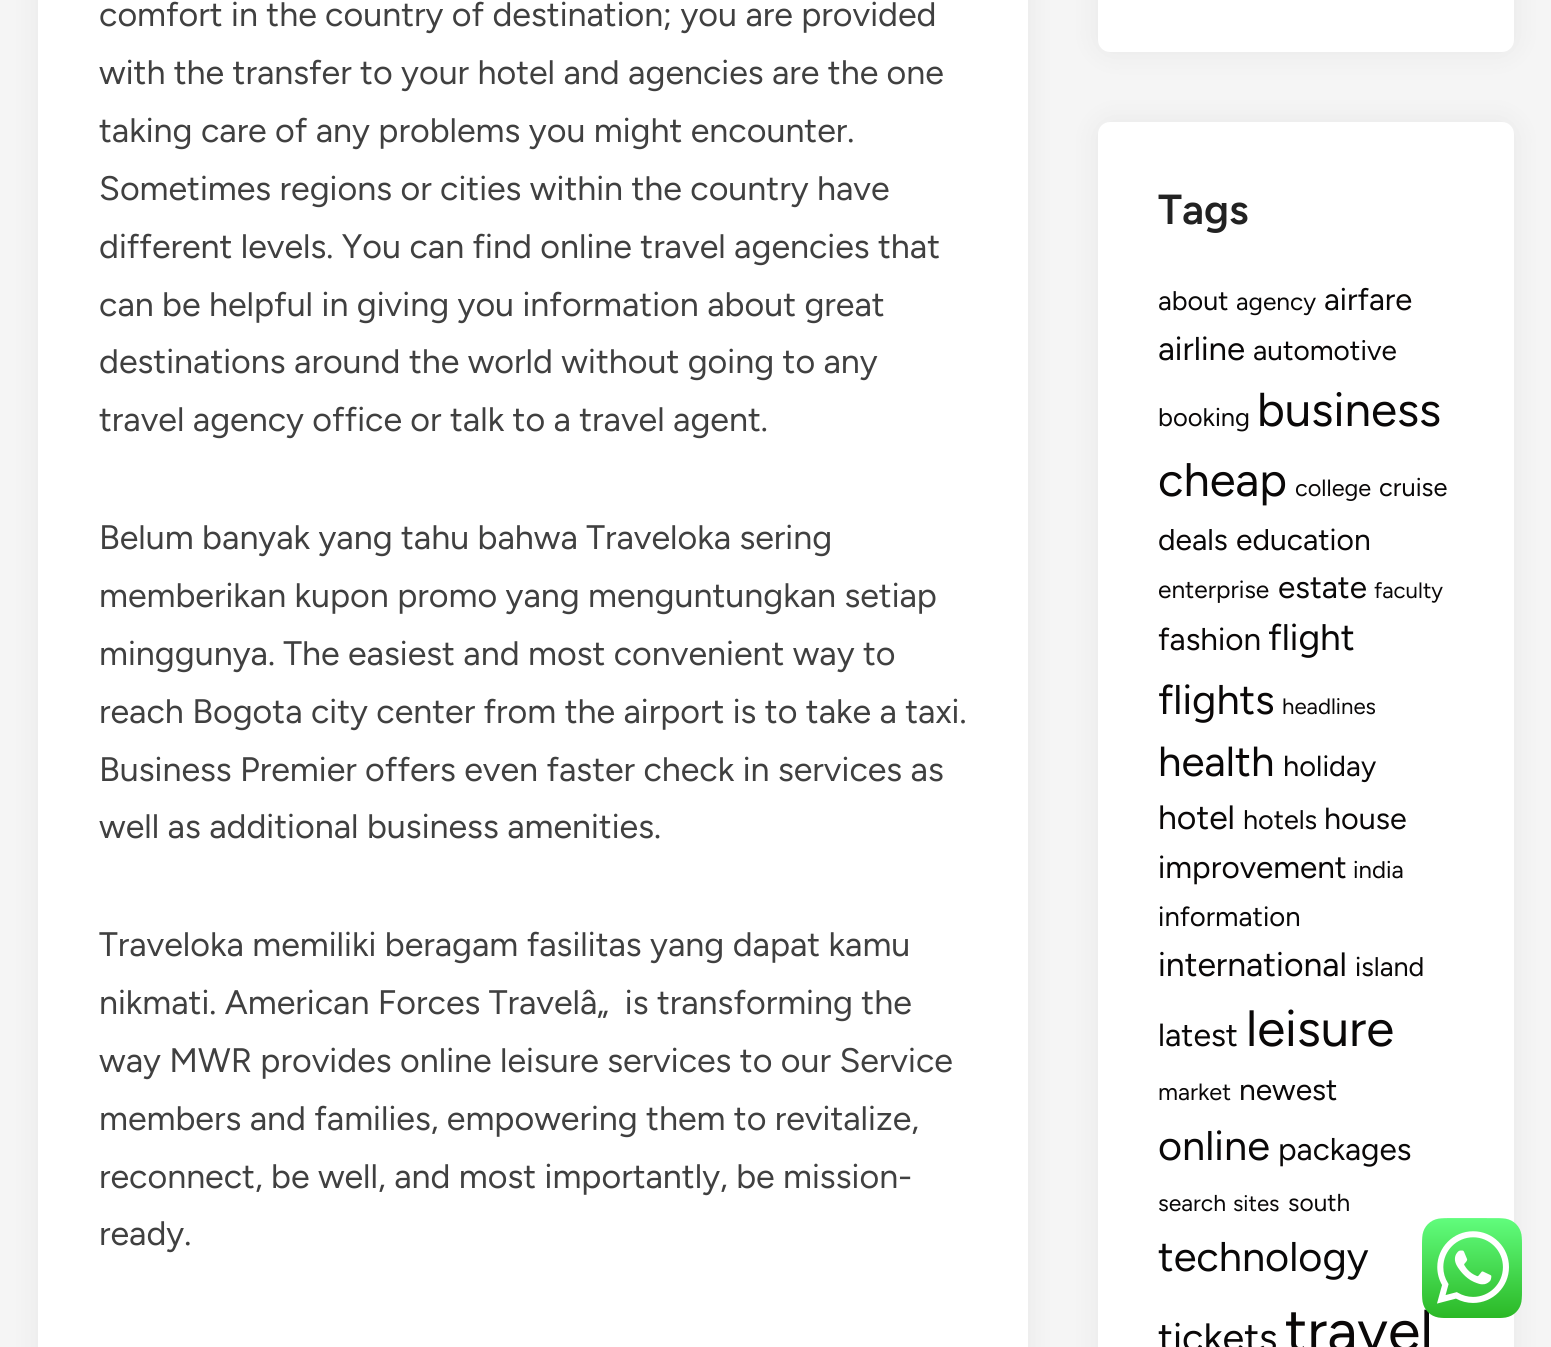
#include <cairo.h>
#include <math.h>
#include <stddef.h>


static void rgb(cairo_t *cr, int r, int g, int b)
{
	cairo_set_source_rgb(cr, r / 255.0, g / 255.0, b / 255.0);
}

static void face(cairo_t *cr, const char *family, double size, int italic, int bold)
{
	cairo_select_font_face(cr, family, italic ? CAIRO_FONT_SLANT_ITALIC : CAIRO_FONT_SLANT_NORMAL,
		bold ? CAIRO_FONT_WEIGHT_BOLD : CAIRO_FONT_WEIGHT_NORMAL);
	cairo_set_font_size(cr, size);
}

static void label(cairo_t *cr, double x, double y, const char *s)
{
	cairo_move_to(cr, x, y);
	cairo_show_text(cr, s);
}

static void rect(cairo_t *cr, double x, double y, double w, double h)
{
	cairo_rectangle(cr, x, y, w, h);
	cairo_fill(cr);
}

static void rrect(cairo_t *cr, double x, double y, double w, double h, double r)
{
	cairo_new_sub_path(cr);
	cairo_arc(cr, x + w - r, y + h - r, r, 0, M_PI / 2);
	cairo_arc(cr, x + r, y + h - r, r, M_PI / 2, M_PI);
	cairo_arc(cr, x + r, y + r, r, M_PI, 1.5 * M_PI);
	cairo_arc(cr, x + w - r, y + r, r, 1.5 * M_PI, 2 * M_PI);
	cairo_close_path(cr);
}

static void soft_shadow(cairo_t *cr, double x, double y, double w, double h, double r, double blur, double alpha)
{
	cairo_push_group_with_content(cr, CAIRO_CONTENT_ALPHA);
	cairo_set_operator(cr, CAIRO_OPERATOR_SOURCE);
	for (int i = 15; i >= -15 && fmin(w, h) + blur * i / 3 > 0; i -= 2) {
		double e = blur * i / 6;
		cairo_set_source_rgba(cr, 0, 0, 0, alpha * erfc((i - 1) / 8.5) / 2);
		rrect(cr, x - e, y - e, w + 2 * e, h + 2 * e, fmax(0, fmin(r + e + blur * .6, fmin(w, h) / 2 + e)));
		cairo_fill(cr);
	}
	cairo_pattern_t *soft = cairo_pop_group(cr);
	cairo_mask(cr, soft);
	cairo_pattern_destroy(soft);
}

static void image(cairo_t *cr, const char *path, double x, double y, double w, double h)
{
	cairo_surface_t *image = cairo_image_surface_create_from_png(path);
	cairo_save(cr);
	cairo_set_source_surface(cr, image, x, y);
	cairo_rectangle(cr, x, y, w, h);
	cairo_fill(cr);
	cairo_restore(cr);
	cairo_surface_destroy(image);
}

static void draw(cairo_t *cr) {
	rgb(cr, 245, 245, 245);
	cairo_paint(cr);
	rgb(cr, 0, 0, 0);
	soft_shadow(cr, 38, -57, 990, 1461, 12, 15, 0.06);
	rgb(cr, 255, 255, 255);
	rect(cr, 38, 0, 990, 1347);
	face(cr, "Figtree", 34, 0, 0);
	rgb(cr, 64, 64, 64);
	label(cr, 99, 26, "comfort in the country of destination; you are provided");
	label(cr, 99, 84, "with the transfer to your hotel and agencies are the one");
	label(cr, 99, 142, "taking care of any problems you might encounter.");
	label(cr, 99, 200, "Sometimes regions or cities within the country have");
	label(cr, 99, 258, "different levels. You can find online travel agencies that");
	label(cr, 99, 316, "can be helpful in giving you information about great");
	label(cr, 99, 373, "destinations around the world without going to any");
	label(cr, 99, 431, "travel agency office or talk to a travel agent.");
	label(cr, 99, 549, "Belum banyak yang tahu bahwa Traveloka sering");
	label(cr, 99, 607, "memberikan kupon promo yang menguntungkan setiap");
	label(cr, 99, 665, "minggunya. The easiest and most convenient way to");
	label(cr, 99, 723, "reach Bogota city center from the airport is to take a taxi.");
	label(cr, 99, 781, "Business Premier offers even faster check in services as");
	label(cr, 99, 838, "well as additional business amenities.");
	label(cr, 99, 956, "Traveloka memiliki beragam fasilitas yang dapat kamu");
	label(cr, 99, 1014, "nikmati. American Forces Travelâ„  is transforming the");
	label(cr, 99, 1072, "way MWR provides online leisure services to our Service");
	label(cr, 99, 1130, "members and families, empowering them to revitalize,");
	label(cr, 99, 1188, "reconnect, be well, and most importantly, be mission-");
	label(cr, 99, 1245, "ready.");
	rgb(cr, 0, 0, 0);
	soft_shadow(cr, 1098, -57, 416, 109, 12, 15, 0.06);
	rgb(cr, 255, 255, 255);
	rrect(cr, 1098, -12, 416, 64, 12);
	cairo_fill(cr);
	rgb(cr, 0, 0, 0);
	soft_shadow(cr, 1098, 122, 416, 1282, 12, 15, 0.06);
	rgb(cr, 255, 255, 255);
	rrect(cr, 1098, 122, 416, 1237, 12);
	cairo_fill(cr);
	face(cr, "Figtree SemiBold", 42, 0, 0);
	rgb(cr, 34, 34, 34);
	label(cr, 1158, 224, "Tags");
	face(cr, "Figtree", 27, 0, 0);
	rgb(cr, 10, 8, 8);
	label(cr, 1158, 310, "about");
	face(cr, "Figtree", 24.5, 0, 0);
	label(cr, 1236, 310, "agency");
	face(cr, "Figtree", 31, 0, 0);
	label(cr, 1324, 310, "airfare");
	face(cr, "Figtree", 33, 0, 0);
	label(cr, 1158, 360, "airline");
	face(cr, "Figtree", 28, 0, 0);
	label(cr, 1253, 360, "automotive");
	face(cr, "Figtree", 25.5, 0, 0);
	label(cr, 1158, 426, "booking");
	face(cr, "Figtree", 47.5, 0, 0);
	label(cr, 1257, 426, "business");
	face(cr, "Figtree", 47, 0, 0);
	label(cr, 1158, 496, "cheap");
	face(cr, "Figtree", 23.5, 0, 0);
	label(cr, 1295, 496, "college");
	face(cr, "Figtree", 25.5, 0, 0);
	label(cr, 1379, 496, "cruise");
	face(cr, "Figtree", 30, 0, 0);
	label(cr, 1158, 550, "deals");
	label(cr, 1236, 550, "education");
	face(cr, "Figtree", 24.5, 0, 0);
	label(cr, 1158, 598, "enterprise");
	face(cr, "Figtree", 31.5, 0, 0);
	label(cr, 1278, 598, "estate");
	face(cr, "Figtree", 22.25, 0, 0);
	label(cr, 1374, 598, "faculty");
	face(cr, "Figtree", 31.5, 0, 0);
	label(cr, 1158, 650, "fashion");
	face(cr, "Figtree", 37, 0, 0);
	label(cr, 1268, 650, "flight");
	face(cr, "Figtree", 41.5, 0, 0);
	label(cr, 1158, 714, "flights");
	face(cr, "Figtree", 22.25, 0, 0);
	label(cr, 1282, 714, "headlines");
	face(cr, "Figtree", 42, 0, 0);
	label(cr, 1158, 776, "health");
	face(cr, "Figtree", 29, 0, 0);
	label(cr, 1283, 776, "holiday");
	face(cr, "Figtree", 33.75, 0, 0);
	label(cr, 1158, 829, "hotel");
	face(cr, "Figtree", 27, 0, 0);
	label(cr, 1243, 829, "hotels");
	face(cr, "Figtree", 30.5, 0, 0);
	label(cr, 1324, 829, "house");
	face(cr, "Figtree", 31.5, 0, 0);
	label(cr, 1158, 878, "improvement");
	face(cr, "Figtree", 24, 0, 0);
	label(cr, 1353, 878, "india");
	face(cr, "Figtree", 27.5, 0, 0);
	label(cr, 1158, 926, "information");
	face(cr, "Figtree", 33.75, 0, 0);
	label(cr, 1158, 976, "international");
	face(cr, "Figtree", 27, 0, 0);
	label(cr, 1355, 976, "island");
	face(cr, "Figtree", 32, 0, 0);
	label(cr, 1158, 1046, "latest");
	face(cr, "Figtree", 51, 0, 0);
	label(cr, 1246, 1046, "leisure");
	face(cr, "Figtree", 23.5, 0, 0);
	label(cr, 1158, 1100, "market");
	face(cr, "Figtree", 30, 0, 0);
	label(cr, 1239, 1100, "newest");
	face(cr, "Figtree", 41.5, 0, 0);
	label(cr, 1158, 1160, "online");
	face(cr, "Figtree", 31.5, 0, 0);
	label(cr, 1278, 1160, "packages");
	face(cr, "Figtree", 23, 0, 0);
	label(cr, 1158, 1211, "search");
	face(cr, "Figtree", 22.25, 0, 0);
	label(cr, 1233, 1211, "sites");
	face(cr, "Figtree", 24.5, 0, 0);
	label(cr, 1288, 1211, "south");
	face(cr, "Figtree", 41.5, 0, 0);
	label(cr, 1158, 1271, "technology");
	face(cr, "Figtree", 39.5, 0, 0);
	label(cr, 1158, 1351, "tickets");
	face(cr, "Figtree", 59, 0, 0);
	label(cr, 1285, 1351, "travel");
	image(cr, "image0.png", 1422, 1218, 100, 100);
}

int main(void) {
	cairo_surface_t *surface = cairo_image_surface_create(CAIRO_FORMAT_RGB24, 1551, 1347);
	cairo_t *cr = cairo_create(surface);
	cairo_font_options_t *options = cairo_font_options_create();
	cairo_font_options_set_hint_metrics(options, CAIRO_HINT_METRICS_OFF);
	cairo_font_options_set_hint_style(options, CAIRO_HINT_STYLE_NONE);
	cairo_set_font_options(cr, options);
	cairo_set_miter_limit(cr, 4);
	draw(cr);
	cairo_surface_write_to_png(surface, "render.png");
	cairo_font_options_destroy(options);
	cairo_destroy(cr);
	cairo_surface_destroy(surface);
	return 0;
}
